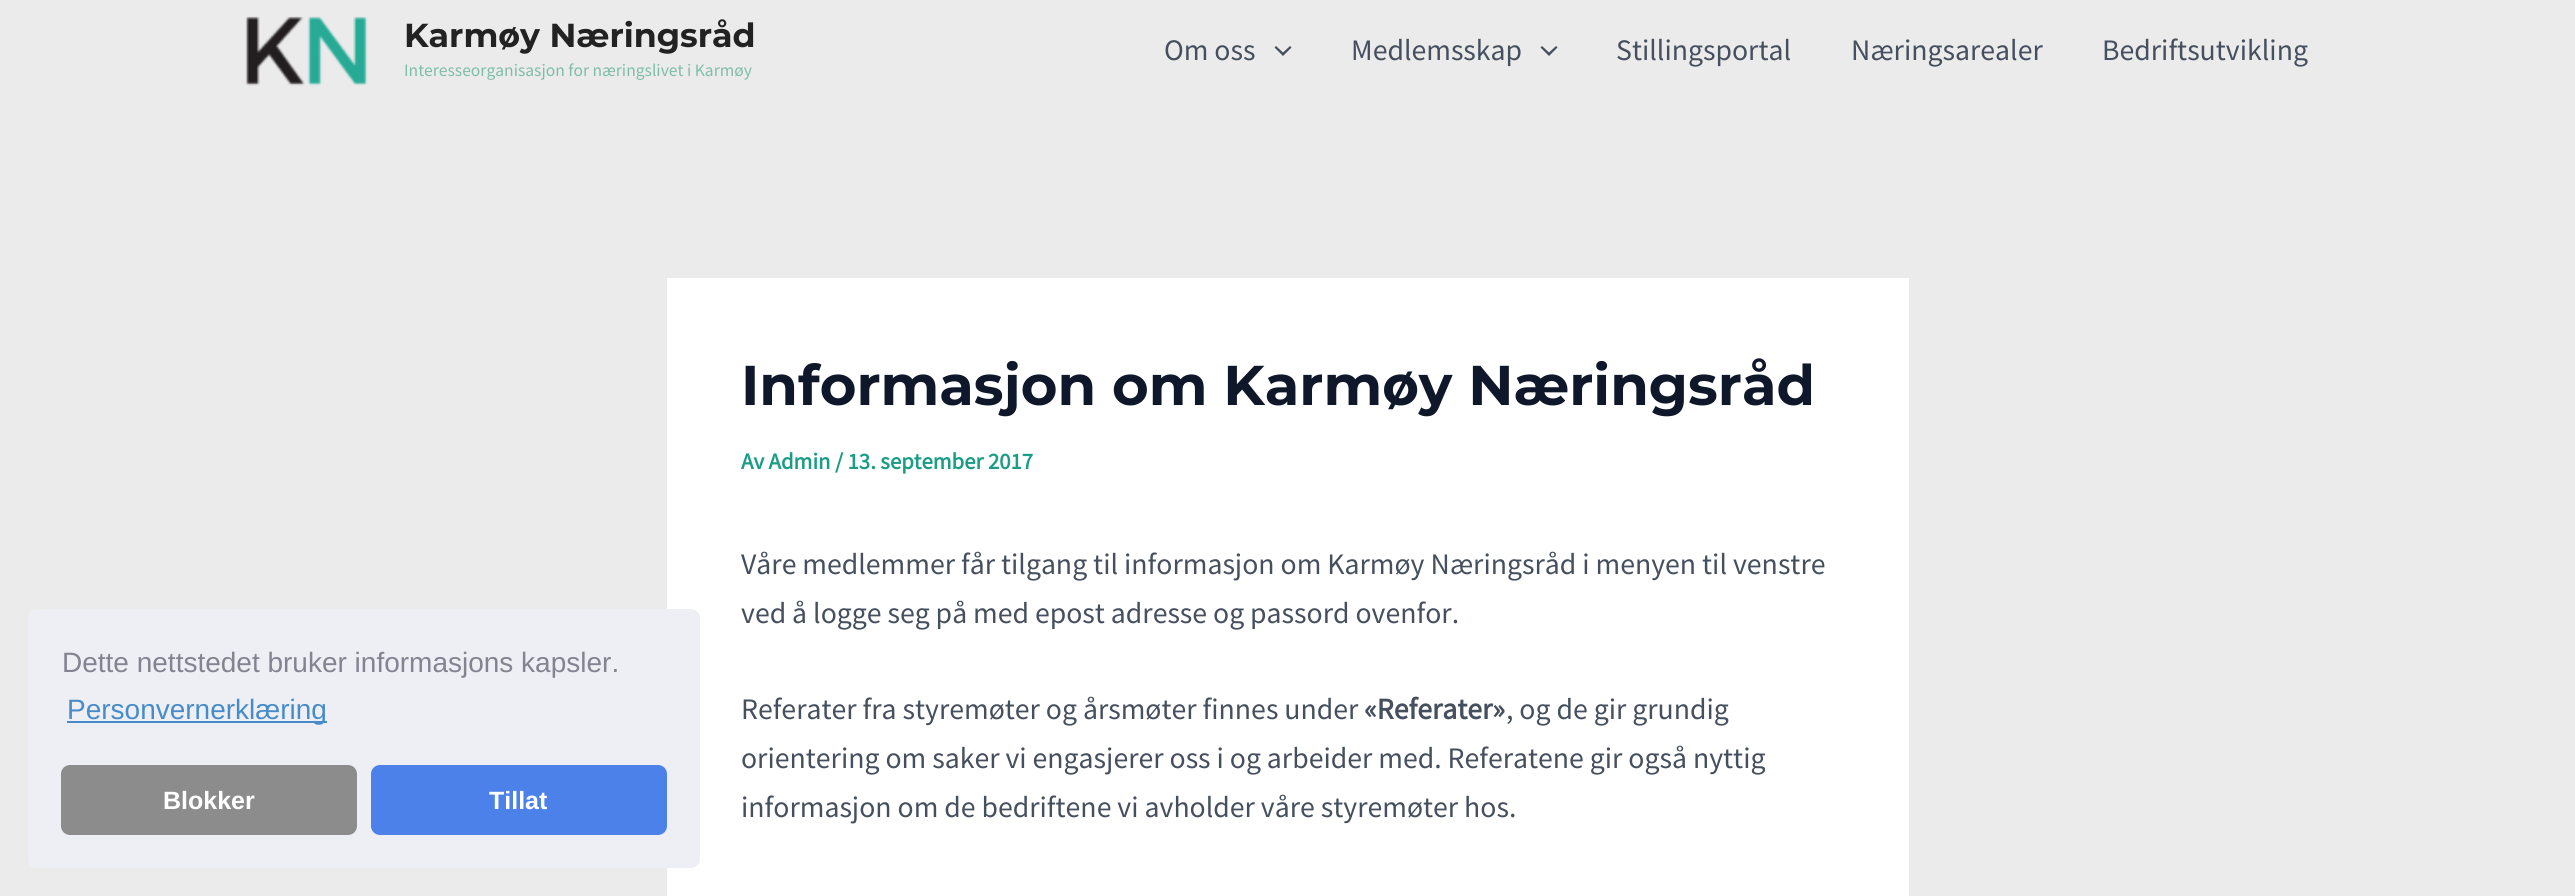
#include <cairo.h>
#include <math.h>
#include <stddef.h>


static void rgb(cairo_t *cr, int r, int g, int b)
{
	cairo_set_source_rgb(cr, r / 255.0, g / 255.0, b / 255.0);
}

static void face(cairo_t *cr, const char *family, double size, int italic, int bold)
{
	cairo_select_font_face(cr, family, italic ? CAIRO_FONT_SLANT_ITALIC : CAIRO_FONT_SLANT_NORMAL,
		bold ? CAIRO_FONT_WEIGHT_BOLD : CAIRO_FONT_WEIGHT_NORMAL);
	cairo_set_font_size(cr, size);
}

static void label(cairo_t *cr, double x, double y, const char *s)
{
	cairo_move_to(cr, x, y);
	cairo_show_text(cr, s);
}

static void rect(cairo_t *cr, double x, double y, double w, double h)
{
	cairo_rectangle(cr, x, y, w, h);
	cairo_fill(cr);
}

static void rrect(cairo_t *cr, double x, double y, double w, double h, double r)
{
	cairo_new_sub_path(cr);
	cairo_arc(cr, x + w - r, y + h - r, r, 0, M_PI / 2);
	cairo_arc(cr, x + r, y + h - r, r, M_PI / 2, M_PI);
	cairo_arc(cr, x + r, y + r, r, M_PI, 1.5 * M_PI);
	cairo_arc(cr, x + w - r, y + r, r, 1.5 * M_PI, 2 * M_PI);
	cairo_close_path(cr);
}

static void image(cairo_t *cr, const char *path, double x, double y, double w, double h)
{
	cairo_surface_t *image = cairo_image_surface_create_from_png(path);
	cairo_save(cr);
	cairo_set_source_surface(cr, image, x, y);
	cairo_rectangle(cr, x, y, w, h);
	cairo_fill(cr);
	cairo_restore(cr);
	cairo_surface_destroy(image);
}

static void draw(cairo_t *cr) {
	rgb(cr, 235, 235, 235);
	cairo_paint(cr);
	rgb(cr, 255, 255, 255);
	rect(cr, 667, 278, 1242, 618);
	rgb(cr, 237, 239, 245);
	rrect(cr, 28, 609, 672, 259, 9);
	cairo_fill(cr);
	face(cr, "Liberation Sans", 28, 0, 0);
	rgb(cr, 131, 131, 145);
	label(cr, 62, 672, "Dette nettstedet bruker informasjons kapsler.");
	rgb(cr, 71, 140, 201);
	rect(cr, 67, 721, 260, 2);
	label(cr, 67, 719, "Personvernerklæring");
	rgb(cr, 140, 140, 140);
	rrect(cr, 61, 765, 296, 70, 9);
	cairo_fill(cr);
	face(cr, "Liberation Sans", 25, 0, 1);
	rgb(cr, 255, 255, 255);
	label(cr, 163, 809, "Blokker");
	rgb(cr, 75, 129, 232);
	rrect(cr, 373, 767, 292, 66, 7);
	cairo_fill_preserve(cr);
	cairo_set_line_width(cr, 4);
	cairo_stroke(cr);
	rgb(cr, 255, 255, 255);
	label(cr, 489, 809, "Tillat");
	image(cr, "image0.png", 245, 16, 123, 70);
	face(cr, "Montserrat Thin", 33.25, 0, 0);
	rgb(cr, 34, 34, 34);
	label(cr, 404, 47, "Karmøy Næringsråd");
	face(cr, "Source Sans Pro", 17.5, 0, 0);
	rgb(cr, 126, 189, 169);
	label(cr, 404, 76, "Interesseorganisasjon for næringslivet i Karmøy");
	face(cr, "Source Sans Pro", 29.75, 0, 0);
	rgb(cr, 69, 79, 94);
	label(cr, 1164, 60, "Om oss");
	cairo_new_path(cr);
	cairo_move_to(cr, 1274.5, 47.5);
	cairo_line_to(cr, 1283, 56);
	cairo_line_to(cr, 1291.5, 47.5);
	cairo_line_to(cr, 1290, 46);
	cairo_line_to(cr, 1283, 52.5);
	cairo_line_to(cr, 1276, 46);
	cairo_close_path(cr);
	cairo_fill(cr);
	label(cr, 1351, 60, "Medlemsskap");
	cairo_new_path(cr);
	cairo_move_to(cr, 1540.5, 47.5);
	cairo_line_to(cr, 1549, 56);
	cairo_line_to(cr, 1557.5, 47.5);
	cairo_line_to(cr, 1556, 46);
	cairo_line_to(cr, 1549, 52.5);
	cairo_line_to(cr, 1542, 46);
	cairo_close_path(cr);
	cairo_fill(cr);
	label(cr, 1616, 60, "Stillingsportal");
	label(cr, 1851, 60, "Næringsarealer");
	label(cr, 2102, 60, "Bedriftsutvikling");
	face(cr, "Montserrat Thin", 56, 0, 0);
	rgb(cr, 15, 23, 42);
	label(cr, 741, 405, "Informasjon om Karmøy Næringsråd");
	face(cr, "Source Sans Pro", 22.75, 0, 1);
	rgb(cr, 27, 156, 133);
	label(cr, 741, 469, "Av Admin / 13. september 2017");
	face(cr, "Source Sans Pro", 29.75, 0, 0);
	rgb(cr, 69, 79, 94);
	label(cr, 741, 574, "Våre medlemmer får tilgang til informasjon om Karmøy Næringsråd i menyen til venstre");
	label(cr, 741, 623, "ved å logge seg på med epost adresse og passord ovenfor.");
	label(cr, 741, 719, "Referater fra styremøter og årsmøter finnes under");
	face(cr, "Source Sans Pro", 29.75, 0, 1);
	label(cr, 1364, 719, "«Referater»");
	face(cr, "Source Sans Pro", 29.75, 0, 0);
	label(cr, 1506, 719, ", og de gir grundig");
	label(cr, 741, 768, "orientering om saker vi engasjerer oss i og arbeider med. Referatene gir også nyttig");
	label(cr, 741, 817, "informasjon om de bedriftene vi avholder våre styremøter hos.");
}

int main(void) {
	cairo_surface_t *surface = cairo_image_surface_create(CAIRO_FORMAT_RGB24, 2575, 896);
	cairo_t *cr = cairo_create(surface);
	cairo_font_options_t *options = cairo_font_options_create();
	cairo_font_options_set_hint_metrics(options, CAIRO_HINT_METRICS_OFF);
	cairo_font_options_set_hint_style(options, CAIRO_HINT_STYLE_NONE);
	cairo_set_font_options(cr, options);
	cairo_set_miter_limit(cr, 4);
	draw(cr);
	cairo_surface_write_to_png(surface, "render.png");
	cairo_font_options_destroy(options);
	cairo_destroy(cr);
	cairo_surface_destroy(surface);
	return 0;
}
